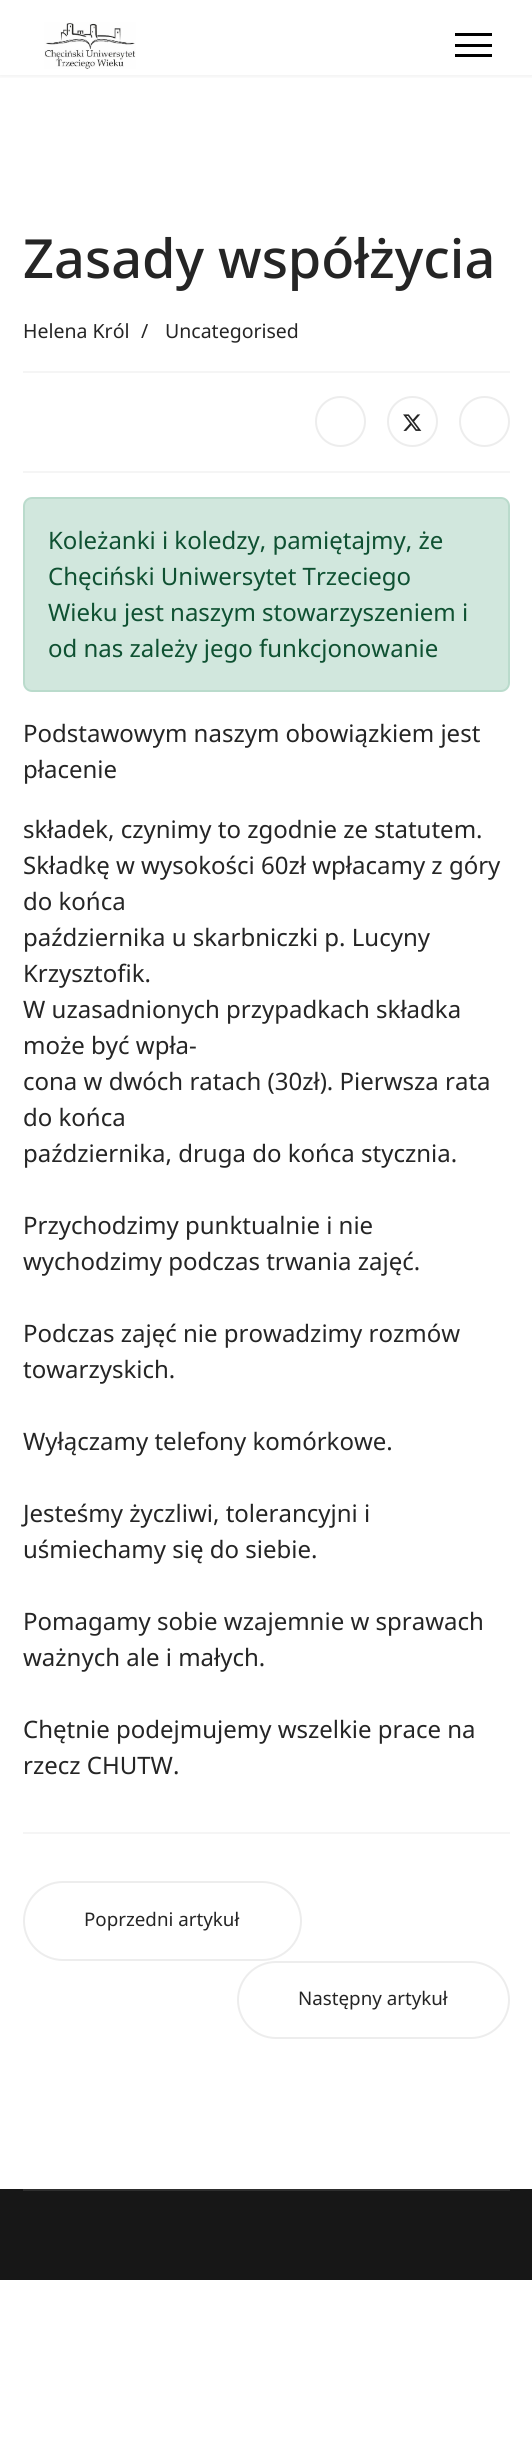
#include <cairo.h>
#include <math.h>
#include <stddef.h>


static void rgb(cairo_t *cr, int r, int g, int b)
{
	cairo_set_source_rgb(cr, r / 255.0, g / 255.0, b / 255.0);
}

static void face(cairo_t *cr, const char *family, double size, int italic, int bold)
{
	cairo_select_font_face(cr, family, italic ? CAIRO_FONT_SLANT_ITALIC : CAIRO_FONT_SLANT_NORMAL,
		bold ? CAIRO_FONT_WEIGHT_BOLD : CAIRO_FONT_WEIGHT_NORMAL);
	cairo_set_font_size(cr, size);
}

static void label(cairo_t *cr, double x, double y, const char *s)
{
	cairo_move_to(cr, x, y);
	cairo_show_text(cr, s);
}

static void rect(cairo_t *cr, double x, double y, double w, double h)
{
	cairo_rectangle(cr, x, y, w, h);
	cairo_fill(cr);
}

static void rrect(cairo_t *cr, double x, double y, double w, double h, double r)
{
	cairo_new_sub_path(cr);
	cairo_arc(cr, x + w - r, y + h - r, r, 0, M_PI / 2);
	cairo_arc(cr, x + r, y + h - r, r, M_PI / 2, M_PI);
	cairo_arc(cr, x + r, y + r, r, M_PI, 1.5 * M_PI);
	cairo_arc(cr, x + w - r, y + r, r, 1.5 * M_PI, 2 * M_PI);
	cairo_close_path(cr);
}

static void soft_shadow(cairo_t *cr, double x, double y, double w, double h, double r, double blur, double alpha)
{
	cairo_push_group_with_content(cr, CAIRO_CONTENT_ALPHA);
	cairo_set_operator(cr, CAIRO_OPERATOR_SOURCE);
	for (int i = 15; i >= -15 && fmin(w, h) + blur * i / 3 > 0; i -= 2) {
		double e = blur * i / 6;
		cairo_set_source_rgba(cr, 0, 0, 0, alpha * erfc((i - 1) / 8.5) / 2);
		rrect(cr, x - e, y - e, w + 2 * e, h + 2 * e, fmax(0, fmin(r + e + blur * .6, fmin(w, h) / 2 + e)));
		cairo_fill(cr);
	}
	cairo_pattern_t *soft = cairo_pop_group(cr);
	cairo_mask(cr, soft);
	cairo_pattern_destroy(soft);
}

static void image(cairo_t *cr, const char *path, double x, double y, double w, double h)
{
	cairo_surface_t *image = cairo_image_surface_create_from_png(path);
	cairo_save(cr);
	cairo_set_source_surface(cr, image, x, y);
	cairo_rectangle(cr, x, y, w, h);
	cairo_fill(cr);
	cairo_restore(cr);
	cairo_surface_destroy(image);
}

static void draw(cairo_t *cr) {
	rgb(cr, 255, 255, 255);
	cairo_paint(cr);
	cairo_save(cr);
	cairo_rectangle(cr, 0, 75, 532, 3);
	cairo_clip(cr);
	rgb(cr, 0, 0, 0);
	soft_shadow(cr, 0, 0, 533, 75, 0, 3, 0.1);
	cairo_restore(cr);
	image(cr, "image0.png", 44, 22, 92, 47);
	rgb(cr, 0, 0, 0);
	rect(cr, 455, 33, 37, 3);
	rect(cr, 455, 44, 37, 3);
	rect(cr, 455, 54, 37, 3);
	face(cr, "Noto Sans Medium", 54, 0, 0);
	rgb(cr, 37, 37, 37);
	label(cr, 23, 278, "Zasady współżycia");
	face(cr, "Noto Sans", 19.5, 0, 0);
	label(cr, 23, 338, "Helena Król");
	label(cr, 141, 338, "/");
	label(cr, 165, 338, "Uncategorised");
	rgb(cr, 245, 245, 245);
	rect(cr, 23, 371, 487, 2);
	rect(cr, 23, 471, 487, 2);
	cairo_new_path(cr);
	cairo_arc(cr, 340.5, 421.5, 24.5, 0, 2 * M_PI);
	rgb(cr, 237, 237, 237);
	cairo_stroke(cr);
	cairo_arc(cr, 412.5, 421.5, 24.5, 0, 2 * M_PI);
	cairo_stroke(cr);
	image(cr, "image1.png", 403, 414, 19, 17);
	cairo_arc(cr, 484.5, 421.5, 24.5, 0, 2 * M_PI);
	cairo_stroke(cr);
	rgb(cr, 209, 231, 221);
	rrect(cr, 24, 498, 485, 193, 8);
	cairo_fill_preserve(cr);
	rgb(cr, 186, 219, 204);
	cairo_stroke(cr);
	face(cr, "Noto Sans", 24, 0, 0);
	rgb(cr, 15, 81, 50);
	label(cr, 48, 549, "Koleżanki i koledzy, pamiętajmy, że");
	label(cr, 48, 585, "Chęciński Uniwersytet Trzeciego");
	label(cr, 48, 621, "Wieku jest naszym stowarzyszeniem i");
	label(cr, 48, 657, "od nas zależy jego funkcjonowanie");
	rgb(cr, 37, 37, 37);
	label(cr, 23, 742, "Podstawowym naszym obowiązkiem jest");
	label(cr, 23, 778, "płacenie");
	label(cr, 23, 838, "składek, czynimy to zgodnie ze statutem.");
	label(cr, 23, 874, "Składkę w wysokości 60zł wpłacamy z góry");
	label(cr, 23, 910, "do końca");
	label(cr, 23, 946, "października u skarbniczki p. Lucyny");
	label(cr, 23, 982, "Krzysztofik.");
	label(cr, 23, 1018, "W uzasadnionych przypadkach składka");
	label(cr, 23, 1054, "może być wpła-");
	label(cr, 23, 1090, "cona w dwóch ratach (30zł). Pierwsza rata");
	label(cr, 23, 1126, "do końca");
	label(cr, 23, 1162, "października, druga do końca stycznia.");
	label(cr, 23, 1234, "Przychodzimy punktualnie i nie");
	label(cr, 23, 1270, "wychodzimy podczas trwania zajęć.");
	label(cr, 23, 1342, "Podczas zajęć nie prowadzimy rozmów");
	label(cr, 23, 1378, "towarzyskich.");
	label(cr, 23, 1450, "Wyłączamy telefony komórkowe.");
	label(cr, 23, 1522, "Jesteśmy życzliwi, tolerancyjni i");
	label(cr, 23, 1558, "uśmiechamy się do siebie.");
	label(cr, 23, 1630, "Pomagamy sobie wzajemnie w sprawach");
	label(cr, 23, 1666, "ważnych ale i małych.");
	label(cr, 23, 1738, "Chętnie podejmujemy wszelkie prace na");
	label(cr, 23, 1774, "rzecz CHUTW.");
	rgb(cr, 245, 245, 245);
	rect(cr, 23, 1832, 487, 2);
	rrect(cr, 24, 1882, 277, 78, 39);
	rgb(cr, 237, 237, 237);
	cairo_stroke(cr);
	face(cr, "Noto Sans", 18.75, 0, 0);
	rgb(cr, 37, 37, 37);
	label(cr, 84, 1926, "Poprzedni artykuł");
	rrect(cr, 238, 1962, 271, 76, 38);
	rgb(cr, 237, 237, 237);
	cairo_stroke(cr);
	rgb(cr, 37, 37, 37);
	label(cr, 298, 2005, "Następny artykuł");
	rgb(cr, 23, 23, 23);
	rect(cr, 0, 2189, 532, 91);
	rgb(cr, 46, 46, 46);
	rect(cr, 23, 2189, 487, 2);
}

int main(void) {
	cairo_surface_t *surface = cairo_image_surface_create(CAIRO_FORMAT_RGB24, 532, 2456);
	cairo_t *cr = cairo_create(surface);
	cairo_font_options_t *options = cairo_font_options_create();
	cairo_font_options_set_hint_metrics(options, CAIRO_HINT_METRICS_OFF);
	cairo_font_options_set_hint_style(options, CAIRO_HINT_STYLE_NONE);
	cairo_set_font_options(cr, options);
	cairo_set_miter_limit(cr, 4);
	draw(cr);
	cairo_surface_write_to_png(surface, "render.png");
	cairo_font_options_destroy(options);
	cairo_destroy(cr);
	cairo_surface_destroy(surface);
	return 0;
}
